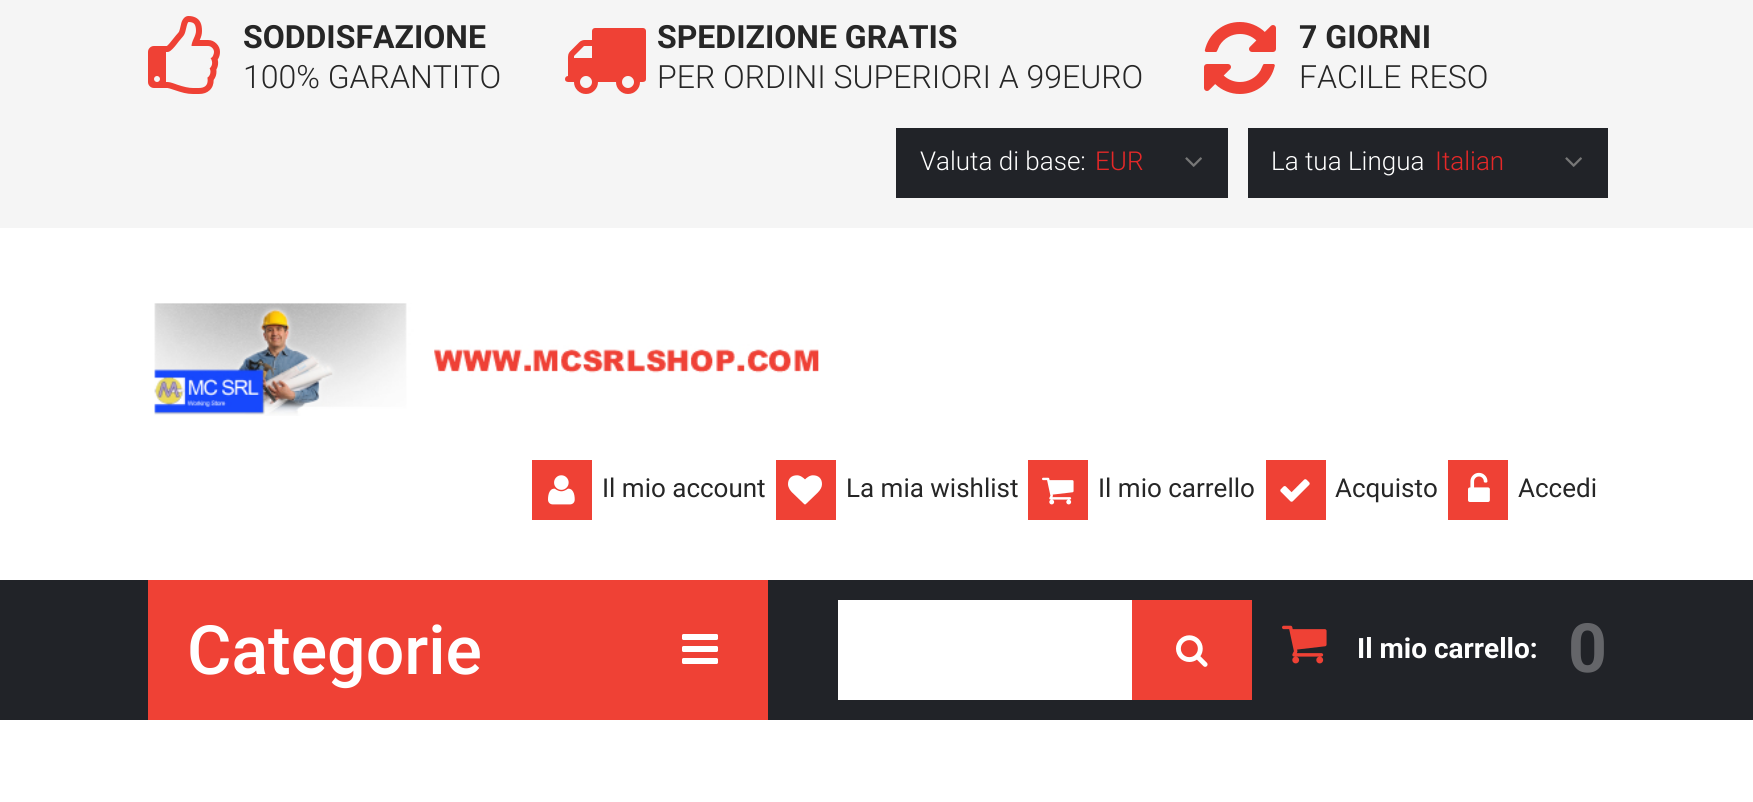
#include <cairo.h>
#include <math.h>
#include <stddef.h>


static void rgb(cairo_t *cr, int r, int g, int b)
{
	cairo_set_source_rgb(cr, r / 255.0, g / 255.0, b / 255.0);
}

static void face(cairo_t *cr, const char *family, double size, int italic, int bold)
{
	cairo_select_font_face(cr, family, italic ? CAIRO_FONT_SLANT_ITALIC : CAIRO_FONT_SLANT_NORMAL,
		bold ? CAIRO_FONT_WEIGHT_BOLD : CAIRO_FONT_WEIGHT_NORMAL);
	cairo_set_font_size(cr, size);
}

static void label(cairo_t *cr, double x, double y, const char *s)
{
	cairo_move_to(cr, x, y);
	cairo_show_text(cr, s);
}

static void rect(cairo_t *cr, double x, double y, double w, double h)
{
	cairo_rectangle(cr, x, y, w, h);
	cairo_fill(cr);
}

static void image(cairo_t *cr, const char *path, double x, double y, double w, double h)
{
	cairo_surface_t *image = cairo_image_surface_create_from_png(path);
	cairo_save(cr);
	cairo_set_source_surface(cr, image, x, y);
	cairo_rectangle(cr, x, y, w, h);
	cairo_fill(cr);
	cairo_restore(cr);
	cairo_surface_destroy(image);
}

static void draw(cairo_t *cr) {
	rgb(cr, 255, 255, 255);
	cairo_paint(cr);
	rgb(cr, 245, 245, 245);
	rect(cr, 0, 0, 1753, 228);
	image(cr, "image0.png", 148, 16, 72, 78);
	face(cr, "Roboto", 32, 0, 1);
	rgb(cr, 38, 38, 38);
	label(cr, 243, 48, "SODDISFAZIONE");
	face(cr, "Roboto Light", 32, 0, 0);
	label(cr, 243, 88, "100% GARANTITO");
	image(cr, "image1.png", 565, 28, 81, 66);
	face(cr, "Roboto", 32, 0, 1);
	label(cr, 657, 48, "SPEDIZIONE GRATIS");
	face(cr, "Roboto Light", 32, 0, 0);
	label(cr, 657, 88, "PER ORDINI SUPERIORI A 99EURO");
	image(cr, "image2.png", 1204, 22, 72, 72);
	face(cr, "Roboto", 32, 0, 1);
	label(cr, 1299, 48, "7 GIORNI");
	face(cr, "Roboto Light", 32, 0, 0);
	label(cr, 1299, 88, "FACILE RESO");
	rgb(cr, 33, 35, 40);
	rect(cr, 896, 128, 332, 70);
	face(cr, "Roboto Light", 26, 0, 0);
	rgb(cr, 255, 255, 255);
	label(cr, 920, 170, "Valuta di base:");
	rgb(cr, 229, 40, 40);
	label(cr, 1095, 170, "EUR");
	image(cr, "image3.png", 1185, 157, 17, 10);
	rgb(cr, 33, 35, 40);
	rect(cr, 1248, 128, 360, 70);
	rgb(cr, 255, 255, 255);
	label(cr, 1271, 170, "La tua Lingua");
	rgb(cr, 229, 40, 40);
	label(cr, 1435, 170, "Italian");
	image(cr, "image3.png", 1565, 157, 17, 10);
	image(cr, "image4.png", 154, 303, 665, 113);
	rgb(cr, 239, 65, 53);
	rect(cr, 532, 460, 60, 60);
	image(cr, "image5.png", 548, 475, 27, 30);
	face(cr, "Roboto", 26, 0, 0);
	rgb(cr, 38, 38, 38);
	label(cr, 602, 497, "Il mio account");
	rgb(cr, 239, 65, 53);
	rect(cr, 776, 460, 60, 60);
	image(cr, "image6.png", 788, 475, 34, 30);
	rgb(cr, 38, 38, 38);
	label(cr, 846, 497, "La mia wishlist");
	rgb(cr, 239, 65, 53);
	rect(cr, 1028, 460, 60, 60);
	image(cr, "image7.png", 1042, 477, 32, 28);
	rgb(cr, 38, 38, 38);
	label(cr, 1098, 497, "Il mio carrello");
	rgb(cr, 239, 65, 53);
	rect(cr, 1266, 460, 60, 60);
	image(cr, "image8.png", 1280, 479, 30, 23);
	rgb(cr, 38, 38, 38);
	label(cr, 1335, 497, "Acquisto");
	rgb(cr, 239, 65, 53);
	rect(cr, 1448, 460, 60, 60);
	image(cr, "image9.png", 1468, 472, 22, 30);
	rgb(cr, 38, 38, 38);
	label(cr, 1518, 497, "Accedi");
	rgb(cr, 33, 35, 40);
	rect(cr, 0, 580, 1753, 140);
	rgb(cr, 239, 65, 53);
	rect(cr, 148, 580, 620, 140);
	face(cr, "Roboto Medium", 68, 0, 0);
	rgb(cr, 255, 255, 255);
	label(cr, 187, 674, "Categorie");
	image(cr, "image10.png", 682, 634, 36, 30);
	rect(cr, 838, 600, 294, 100);
	rgb(cr, 239, 65, 53);
	rect(cr, 1132, 600, 120, 100);
	image(cr, "image11.png", 1176, 635, 32, 32);
	image(cr, "image12.png", 1282, 625, 45, 39);
	face(cr, "Roboto", 28, 0, 1);
	rgb(cr, 255, 255, 255);
	label(cr, 1357, 658, "Il mio carrello:");
	face(cr, "Roboto", 68, 0, 1);
	rgb(cr, 100, 101, 105);
	label(cr, 1568, 672, "0");
}

int main(void) {
	cairo_surface_t *surface = cairo_image_surface_create(CAIRO_FORMAT_RGB24, 1753, 802);
	cairo_t *cr = cairo_create(surface);
	cairo_font_options_t *options = cairo_font_options_create();
	cairo_font_options_set_hint_metrics(options, CAIRO_HINT_METRICS_OFF);
	cairo_font_options_set_hint_style(options, CAIRO_HINT_STYLE_NONE);
	cairo_set_font_options(cr, options);
	cairo_set_miter_limit(cr, 4);
	draw(cr);
	cairo_surface_write_to_png(surface, "render.png");
	cairo_font_options_destroy(options);
	cairo_destroy(cr);
	cairo_surface_destroy(surface);
	return 0;
}
